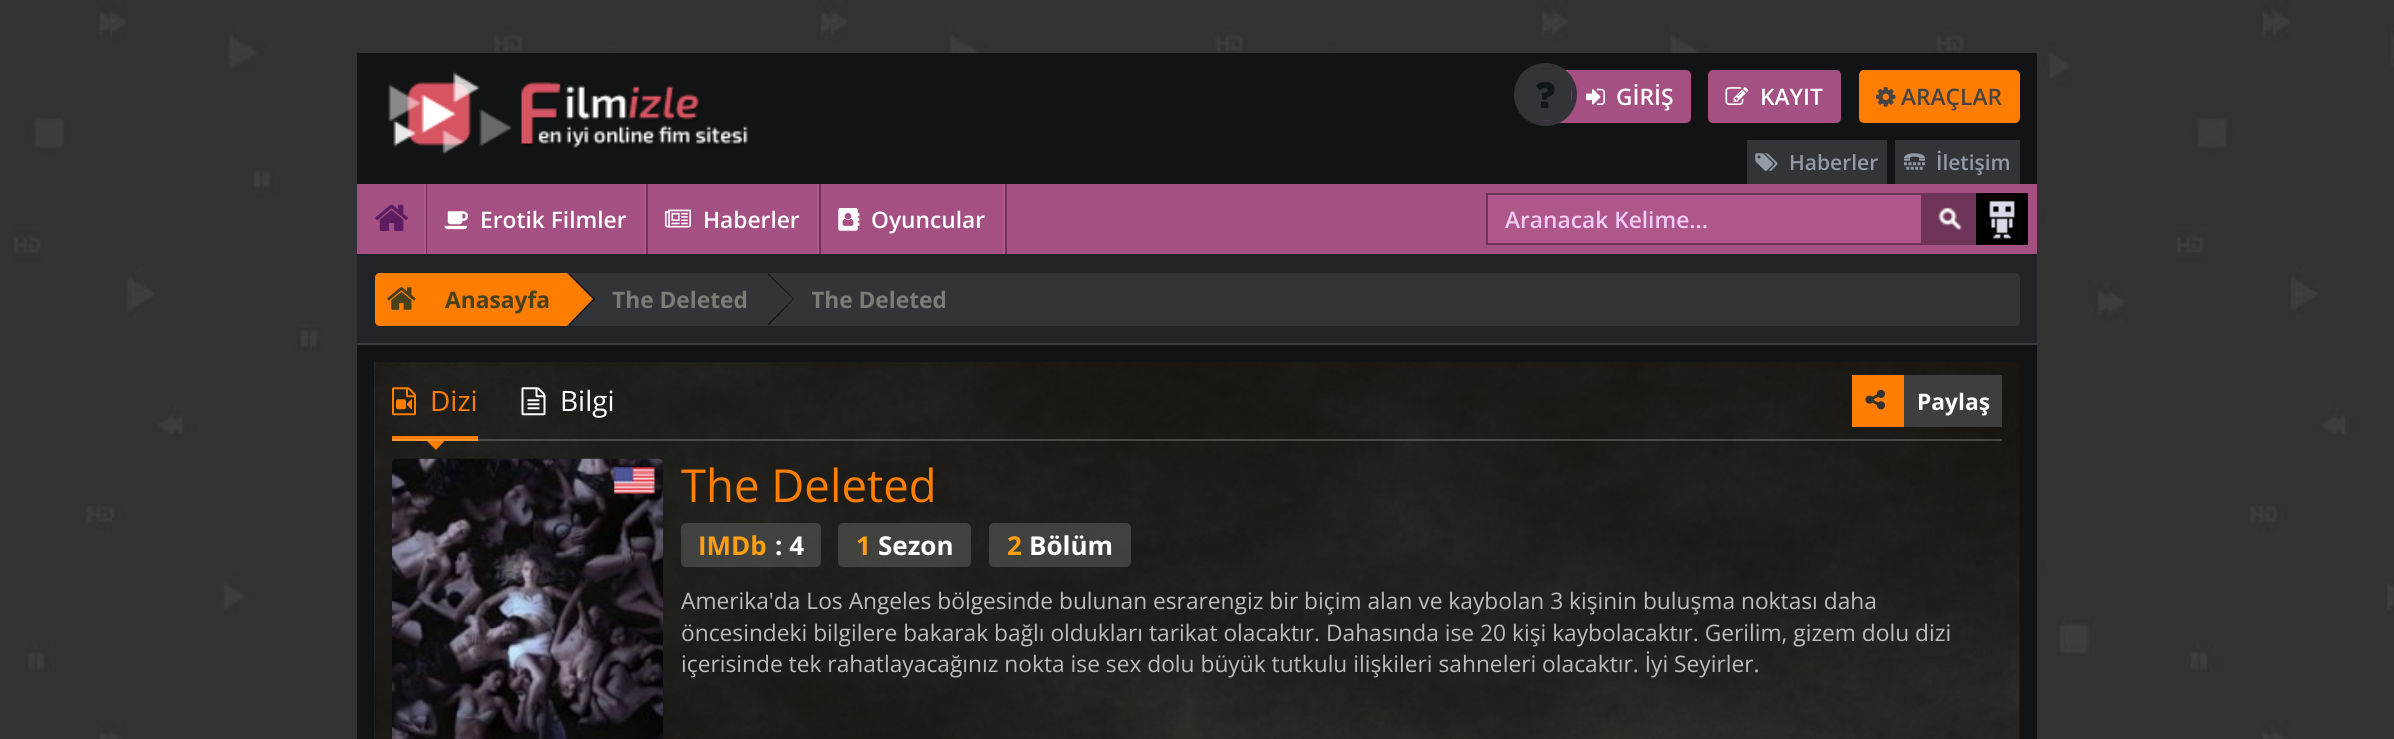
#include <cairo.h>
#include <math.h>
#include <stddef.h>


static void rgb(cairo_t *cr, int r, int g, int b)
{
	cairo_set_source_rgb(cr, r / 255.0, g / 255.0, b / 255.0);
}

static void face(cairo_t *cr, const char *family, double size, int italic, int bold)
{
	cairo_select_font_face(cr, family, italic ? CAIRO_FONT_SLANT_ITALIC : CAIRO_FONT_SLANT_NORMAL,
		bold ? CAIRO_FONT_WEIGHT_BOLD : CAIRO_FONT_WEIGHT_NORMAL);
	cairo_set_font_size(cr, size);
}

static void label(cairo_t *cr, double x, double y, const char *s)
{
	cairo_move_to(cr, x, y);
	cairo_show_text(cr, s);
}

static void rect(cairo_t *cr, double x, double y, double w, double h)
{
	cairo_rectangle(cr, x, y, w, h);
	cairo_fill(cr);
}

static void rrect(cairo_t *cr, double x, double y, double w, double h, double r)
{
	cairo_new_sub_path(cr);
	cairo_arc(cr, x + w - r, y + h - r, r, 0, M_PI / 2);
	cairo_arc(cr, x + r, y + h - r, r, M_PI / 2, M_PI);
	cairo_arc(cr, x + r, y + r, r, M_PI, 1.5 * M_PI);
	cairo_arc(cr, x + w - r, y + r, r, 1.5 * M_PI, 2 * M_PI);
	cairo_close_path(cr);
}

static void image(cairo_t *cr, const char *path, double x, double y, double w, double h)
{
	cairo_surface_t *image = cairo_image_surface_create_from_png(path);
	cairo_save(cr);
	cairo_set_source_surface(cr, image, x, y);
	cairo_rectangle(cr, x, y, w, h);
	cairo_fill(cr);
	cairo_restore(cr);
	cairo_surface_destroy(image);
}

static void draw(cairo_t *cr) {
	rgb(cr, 255, 255, 255);
	cairo_paint(cr);
	image(cr, "image0.png", 0, 0, 2394, 739);
	rgb(cr, 34, 35, 38);
	rect(cr, 357, 256, 1680, 87);
	rgb(cr, 18, 19, 20);
	rect(cr, 357, 53, 1680, 131);
	image(cr, "image1.png", 388, 71, 360, 84);
	rgb(cr, 165, 80, 131);
	rrect(cr, 1531, 70, 160, 53, 5);
	cairo_fill(cr);
	image(cr, "image2.png", 1519, 68, 53, 53);
	cairo_arc(cr, 1545.5, 94.5, 29, 0, 2 * M_PI);
	rgb(cr, 50, 52, 56);
	cairo_set_line_width(cr, 5);
	cairo_stroke(cr);
	image(cr, "image3.png", 1586, 88, 19, 17);
	face(cr, "Open Sans SemiBold", 22.75, 0, 0);
	rgb(cr, 255, 255, 255);
	label(cr, 1616, 105, "GİRİŞ");
	rgb(cr, 165, 80, 131);
	rrect(cr, 1708, 70, 133, 53, 5);
	cairo_fill(cr);
	image(cr, "image4.png", 1725, 87, 24, 18);
	rgb(cr, 255, 255, 255);
	label(cr, 1760, 105, "KAYIT");
	rgb(cr, 255, 125, 0);
	rrect(cr, 1859, 70, 161, 53, 5);
	cairo_fill(cr);
	image(cr, "image5.png", 1876, 87, 20, 20);
	rgb(cr, 68, 68, 68);
	label(cr, 1901, 105, "ARAÇLAR");
	rgb(cr, 50, 52, 56);
	rect(cr, 1747, 140, 140, 44);
	image(cr, "image6.png", 1755, 153, 23, 18);
	face(cr, "Open Sans SemiBold", 21, 0, 0);
	rgb(cr, 147, 155, 166);
	label(cr, 1789, 170, "Haberler");
	rgb(cr, 50, 52, 56);
	rect(cr, 1895, 140, 125, 44);
	image(cr, "image7.png", 1904, 153, 21, 17);
	rgb(cr, 147, 155, 166);
	label(cr, 1936, 170, "İletişim");
	rgb(cr, 165, 80, 131);
	rect(cr, 357, 184, 1680, 70);
	rgb(cr, 21, 35, 38);
	rect(cr, 357, 254, 1680, 2);
	rgb(cr, 111, 53, 88);
	rect(cr, 426, 184, 1, 70);
	image(cr, "image8.png", 375, 204, 33, 27);
	rgb(cr, 175, 86, 139);
	rect(cr, 424, 184, 2, 70);
	rgb(cr, 111, 53, 88);
	rect(cr, 646, 184, 2, 70);
	rgb(cr, 175, 86, 139);
	rect(cr, 644, 184, 2, 70);
	image(cr, "image9.png", 444, 211, 25, 19);
	face(cr, "Open Sans SemiBold", 22.75, 0, 0);
	rgb(cr, 255, 255, 255);
	label(cr, 480, 228, "Erotik Filmler");
	rgb(cr, 111, 53, 88);
	rect(cr, 819, 184, 2, 70);
	rgb(cr, 175, 86, 139);
	rect(cr, 817, 184, 2, 70);
	image(cr, "image10.png", 665, 209, 26, 19);
	rgb(cr, 255, 255, 255);
	label(cr, 703, 228, "Haberler");
	rgb(cr, 111, 53, 88);
	rect(cr, 1005, 184, 2, 70);
	rgb(cr, 175, 86, 139);
	rect(cr, 1003, 184, 2, 70);
	image(cr, "image11.png", 838, 208, 22, 23);
	rgb(cr, 255, 255, 255);
	label(cr, 871, 228, "Oyuncular");
	rgb(cr, 175, 86, 139);
	cairo_rectangle(cr, 1487, 194, 435, 50);
	cairo_fill_preserve(cr);
	rgb(cr, 111, 53, 88);
	cairo_set_line_width(cr, 2);
	cairo_stroke(cr);
	rgb(cr, 241, 204, 246);
	label(cr, 1505, 228, "Aranacak Kelime...");
	rgb(cr, 111, 53, 88);
	rect(cr, 1923, 193, 53, 52);
	image(cr, "image12.png", 1938, 207, 24, 23);
	rgb(cr, 0, 0, 0);
	rect(cr, 1976, 193, 52, 52);
	image(cr, "image13.png", 1989, 200, 26, 39);
	rgb(cr, 57, 59, 64);
	rect(cr, 357, 343, 1680, 2);
	rgb(cr, 50, 52, 56);
	rrect(cr, 375, 273, 1645, 53, 5);
	cairo_fill(cr);
	rgb(cr, 255, 125, 0);
	cairo_new_path(cr);
	cairo_move_to(cr, 380, 273);
	cairo_line_to(cr, 567, 273);
	cairo_line_to(cr, 567, 326);
	cairo_line_to(cr, 380, 326);
	cairo_curve_to(cr, 377, 326, 375, 324, 375, 321);
	cairo_line_to(cr, 375, 278);
	cairo_curve_to(cr, 375, 275, 377, 273, 380, 273);
	cairo_close_path(cr);
	cairo_fill(cr);
	image(cr, "image14.png", 387, 287, 29, 23);
	face(cr, "Open Sans", 22.75, 0, 1);
	rgb(cr, 71, 65, 29);
	label(cr, 445, 308, "Anasayfa");
	rgb(cr, 18, 19, 20);
	cairo_new_path(cr);
	cairo_move_to(cr, 569, 326);
	cairo_line_to(cr, 569, 273);
	cairo_line_to(cr, 595, 299);
	cairo_close_path(cr);
	cairo_fill(cr);
	rgb(cr, 255, 125, 0);
	cairo_new_path(cr);
	cairo_move_to(cr, 567, 326);
	cairo_line_to(cr, 567, 273);
	cairo_line_to(cr, 593, 299);
	cairo_close_path(cr);
	cairo_fill(cr);
	rgb(cr, 120, 125, 118);
	label(cr, 612, 308, "The Deleted");
	rgb(cr, 18, 19, 20);
	cairo_new_path(cr);
	cairo_move_to(cr, 768, 326);
	cairo_line_to(cr, 768, 273);
	cairo_line_to(cr, 794, 299);
	cairo_close_path(cr);
	cairo_fill(cr);
	rgb(cr, 50, 52, 56);
	cairo_new_path(cr);
	cairo_move_to(cr, 766, 326);
	cairo_line_to(cr, 766, 273);
	cairo_line_to(cr, 793, 299);
	cairo_close_path(cr);
	cairo_fill(cr);
	cairo_save(cr);
	cairo_rectangle(cr, 812, 273, 135, 53);
	cairo_clip(cr);
	rgb(cr, 120, 125, 118);
	label(cr, 811, 308, "The Deleted");
	cairo_restore(cr);
	rgb(cr, 18, 19, 20);
	rect(cr, 357, 345, 1680, 394);
	image(cr, "image15.png", 374, 362, 1646, 377);
	cairo_set_source_rgba(cr, 0.937, 0.604, 0.306, 0.3);
	rect(cr, 375, 362, 1645, 377);
	cairo_set_source_rgba(cr, 0, 0, 0, 0.7);
	rect(cr, 375, 362, 1645, 377);
	image(cr, "image16.png", 392, 387, 24, 29);
	face(cr, "Open Sans", 28, 0, 0);
	rgb(cr, 255, 125, 0);
	label(cr, 430, 411, "Dizi");
	cairo_new_path(cr);
	cairo_move_to(cr, 427, 441);
	cairo_line_to(cr, 444.5, 441);
	cairo_line_to(cr, 436, 450);
	cairo_close_path(cr);
	cairo_fill(cr);
	rect(cr, 392, 436, 86, 5);
	image(cr, "image17.png", 521, 387, 25, 29);
	rgb(cr, 255, 255, 255);
	label(cr, 560, 411, "Bilgi");
	cairo_set_source_rgba(cr, 1, 1, 1, 0.2);
	rect(cr, 392, 439, 1610, 2);
	rgb(cr, 62, 62, 62);
	rect(cr, 1904, 375, 98, 52);
	rgb(cr, 255, 125, 0);
	rect(cr, 1852, 375, 52, 52);
	image(cr, "image18.png", 1865, 389, 20, 21);
	face(cr, "Open Sans", 22.75, 0, 1);
	rgb(cr, 255, 255, 255);
	label(cr, 1917, 410, "Paylaş");
	image(cr, "image19.png", 392, 458, 272, 281);
	image(cr, "image20.png", 614, 467, 41, 27);
	face(cr, "Open Sans", 45.5, 0, 0);
	rgb(cr, 255, 125, 0);
	label(cr, 681, 502, "The Deleted");
	cairo_set_source_rgba(cr, 0.314, 0.314, 0.314, 0.7);
	rrect(cr, 681, 523, 140, 44, 5);
	cairo_fill(cr);
	face(cr, "Open Sans", 26, 0, 1);
	rgb(cr, 253, 159, 19);
	label(cr, 698, 555, "IMDb");
	rgb(cr, 255, 255, 255);
	label(cr, 775, 555, ": 4");
	cairo_set_source_rgba(cr, 0.314, 0.314, 0.314, 0.7);
	rrect(cr, 838, 523, 133, 44, 5);
	cairo_fill(cr);
	rgb(cr, 253, 159, 19);
	label(cr, 856, 555, "1");
	rgb(cr, 255, 255, 255);
	label(cr, 878, 555, "Sezon");
	cairo_set_source_rgba(cr, 0.314, 0.314, 0.314, 0.7);
	rrect(cr, 989, 523, 142, 44, 5);
	cairo_fill(cr);
	rgb(cr, 253, 159, 19);
	label(cr, 1007, 555, "2");
	rgb(cr, 255, 255, 255);
	label(cr, 1029, 555, "Bölüm");
	face(cr, "Open Sans", 22.75, 0, 0);
	rgb(cr, 188, 188, 187);
	label(cr, 681, 609, "Amerika'da Los Angeles bölgesinde bulunan esrarengiz bir biçim alan ve kaybolan 3 kişinin buluşma noktası daha");
	label(cr, 681, 641, "öncesindeki bilgilere bakarak bağlı oldukları tarikat olacaktır. Dahasında ise 20 kişi kaybolacaktır. Gerilim, gizem dolu dizi");
	label(cr, 681, 672, "içerisinde tek rahatlayacağınız nokta ise sex dolu büyük tutkulu ilişkileri sahneleri olacaktır. İyi Seyirler.");
}

int main(void) {
	cairo_surface_t *surface = cairo_image_surface_create(CAIRO_FORMAT_RGB24, 2394, 739);
	cairo_t *cr = cairo_create(surface);
	cairo_font_options_t *options = cairo_font_options_create();
	cairo_font_options_set_hint_metrics(options, CAIRO_HINT_METRICS_OFF);
	cairo_font_options_set_hint_style(options, CAIRO_HINT_STYLE_NONE);
	cairo_set_font_options(cr, options);
	cairo_set_miter_limit(cr, 4);
	draw(cr);
	cairo_surface_write_to_png(surface, "render.png");
	cairo_font_options_destroy(options);
	cairo_destroy(cr);
	cairo_surface_destroy(surface);
	return 0;
}
